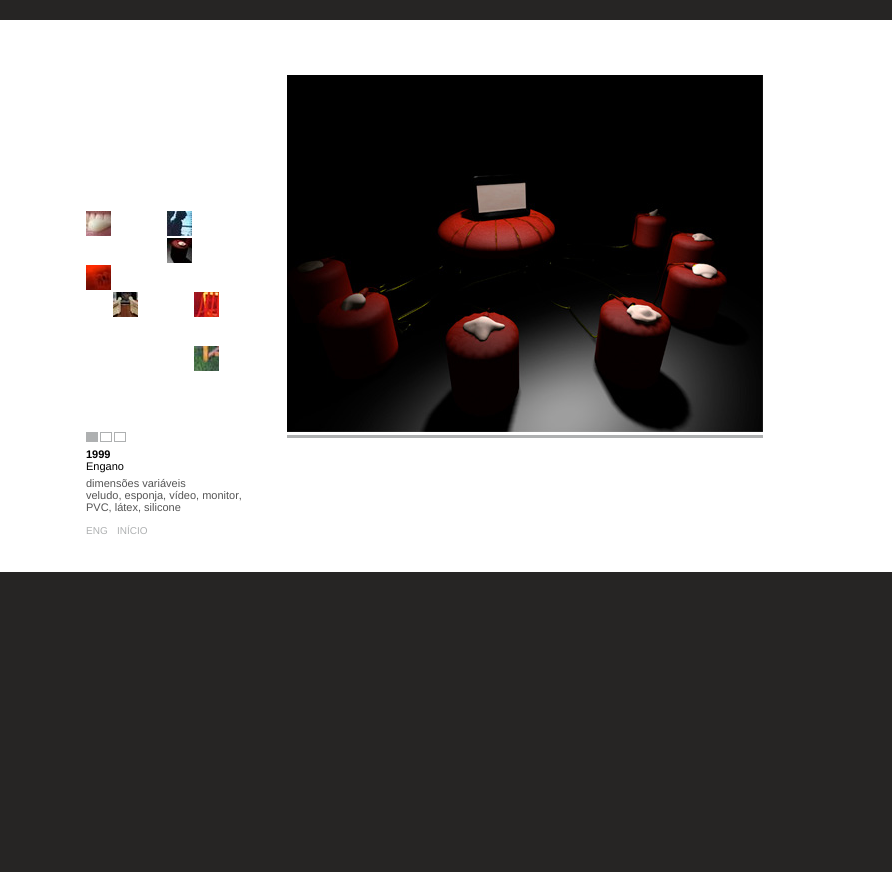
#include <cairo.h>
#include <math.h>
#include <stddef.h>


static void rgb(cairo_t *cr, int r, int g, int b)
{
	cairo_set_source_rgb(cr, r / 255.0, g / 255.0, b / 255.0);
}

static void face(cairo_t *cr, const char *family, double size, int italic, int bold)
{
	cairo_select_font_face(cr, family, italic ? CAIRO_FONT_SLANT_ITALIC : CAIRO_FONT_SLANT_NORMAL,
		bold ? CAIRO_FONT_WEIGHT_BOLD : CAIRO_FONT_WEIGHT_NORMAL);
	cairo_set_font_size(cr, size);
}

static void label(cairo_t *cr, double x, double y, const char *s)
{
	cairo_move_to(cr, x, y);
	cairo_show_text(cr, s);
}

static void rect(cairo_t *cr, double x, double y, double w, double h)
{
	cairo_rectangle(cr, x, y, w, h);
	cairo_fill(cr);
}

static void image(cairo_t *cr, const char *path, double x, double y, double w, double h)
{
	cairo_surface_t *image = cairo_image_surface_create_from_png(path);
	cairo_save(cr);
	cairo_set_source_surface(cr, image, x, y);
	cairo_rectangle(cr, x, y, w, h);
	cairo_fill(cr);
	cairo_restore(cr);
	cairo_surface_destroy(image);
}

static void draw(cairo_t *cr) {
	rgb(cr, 38, 37, 36);
	cairo_paint(cr);
	rgb(cr, 255, 255, 255);
	rect(cr, 0, 20, 892, 552);
	image(cr, "image0.png", 287, 75, 476, 357);
	rgb(cr, 174, 176, 177);
	rect(cr, 287, 435, 476, 3);
	image(cr, "image1.png", 86, 211, 25, 25);
	image(cr, "image2.png", 167, 211, 25, 25);
	image(cr, "image3.png", 167, 238, 25, 25);
	image(cr, "image4.png", 86, 265, 25, 25);
	image(cr, "image5.png", 113, 292, 25, 25);
	image(cr, "image6.png", 194, 292, 25, 25);
	image(cr, "image7.png", 194, 346, 25, 25);
	rect(cr, 86, 432, 12, 10);
	cairo_rectangle(cr, 100.5, 432.5, 11, 9);
	cairo_set_line_width(cr, 1);
	cairo_stroke(cr);
	cairo_rectangle(cr, 114.5, 432.5, 11, 9);
	cairo_stroke(cr);
	face(cr, "Liberation Sans", 11, 0, 1);
	rgb(cr, 0, 0, 0);
	label(cr, 86, 458, "1999");
	face(cr, "Liberation Sans", 11, 0, 0);
	label(cr, 86, 470, "Engano");
	rgb(cr, 84, 84, 84);
	label(cr, 86, 487, "dimensões variáveis");
	label(cr, 86, 499, "veludo, esponja, vídeo, monitor,");
	label(cr, 86, 511, "PVC, látex, silicone");
	face(cr, "Liberation Sans", 10, 0, 0);
	rgb(cr, 174, 176, 177);
	label(cr, 86, 534, "ENG");
	label(cr, 117, 534, "INÍCIO");
}

int main(void) {
	cairo_surface_t *surface = cairo_image_surface_create(CAIRO_FORMAT_RGB24, 892, 872);
	cairo_t *cr = cairo_create(surface);
	cairo_font_options_t *options = cairo_font_options_create();
	cairo_font_options_set_hint_metrics(options, CAIRO_HINT_METRICS_OFF);
	cairo_font_options_set_hint_style(options, CAIRO_HINT_STYLE_NONE);
	cairo_set_font_options(cr, options);
	cairo_set_miter_limit(cr, 4);
	draw(cr);
	cairo_surface_write_to_png(surface, "render.png");
	cairo_font_options_destroy(options);
	cairo_destroy(cr);
	cairo_surface_destroy(surface);
	return 0;
}
